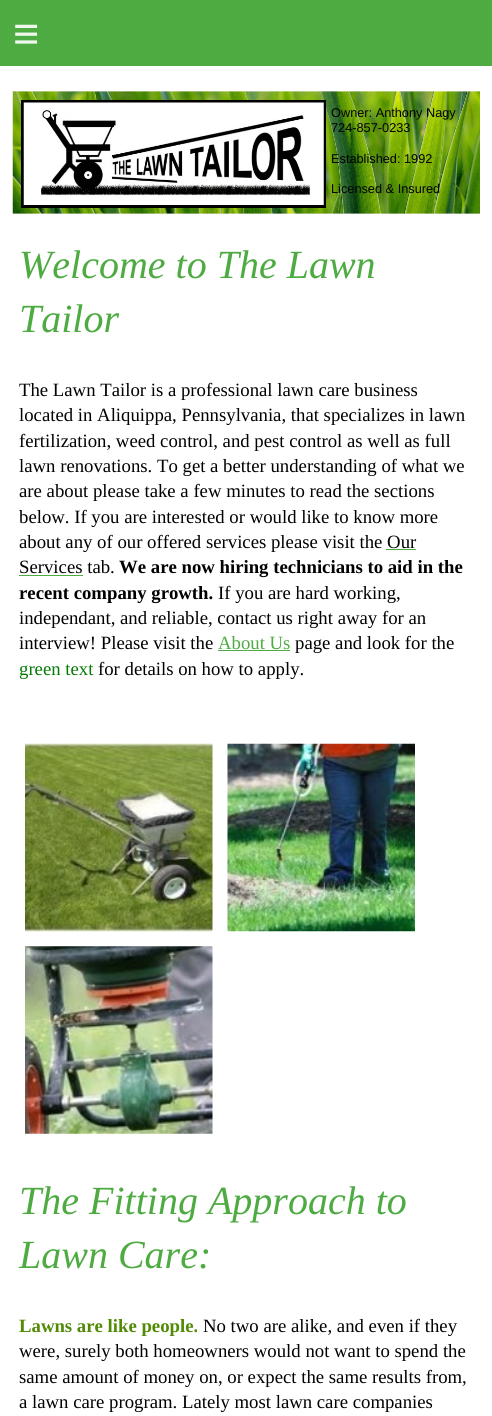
#include <cairo.h>
#include <math.h>
#include <stddef.h>


static void rgb(cairo_t *cr, int r, int g, int b)
{
	cairo_set_source_rgb(cr, r / 255.0, g / 255.0, b / 255.0);
}

static void face(cairo_t *cr, const char *family, double size, int italic, int bold)
{
	cairo_select_font_face(cr, family, italic ? CAIRO_FONT_SLANT_ITALIC : CAIRO_FONT_SLANT_NORMAL,
		bold ? CAIRO_FONT_WEIGHT_BOLD : CAIRO_FONT_WEIGHT_NORMAL);
	cairo_set_font_size(cr, size);
}

static void label(cairo_t *cr, double x, double y, const char *s)
{
	cairo_move_to(cr, x, y);
	cairo_show_text(cr, s);
}

static void tracked(cairo_t *cr, double x, double y, const char *s, double letter, double word)
{
	cairo_move_to(cr, x, y);
	while (*s) {
		char ch[5] = {0};
		int n = 0;
		do ch[n++] = *s++; while ((*s & 0xC0) == 0x80);
		cairo_show_text(cr, ch);
		cairo_rel_move_to(cr, letter + word * (*ch == ' '), 0);
	}
}

static void rect(cairo_t *cr, double x, double y, double w, double h)
{
	cairo_rectangle(cr, x, y, w, h);
	cairo_fill(cr);
}

static void image(cairo_t *cr, const char *path, double x, double y, double w, double h)
{
	cairo_surface_t *image = cairo_image_surface_create_from_png(path);
	cairo_save(cr);
	cairo_set_source_surface(cr, image, x, y);
	cairo_rectangle(cr, x, y, w, h);
	cairo_fill(cr);
	cairo_restore(cr);
	cairo_surface_destroy(image);
}

static void draw(cairo_t *cr) {
	rgb(cr, 255, 255, 255);
	cairo_paint(cr);
	rgb(cr, 77, 171, 65);
	rect(cr, 0, 0, 492, 66);
	face(cr, "Liberation Sans", 45, 0, 0);
	rgb(cr, 237, 247, 236);
	tracked(cr, 13, 49, "≡", 13, 0);
	rgb(cr, 238, 238, 238);
	rect(cr, 13, 91, 467, 123);
	image(cr, "image0.png", 12, 91, 468, 123);
	cairo_rectangle(cr, 22.5, 101.5, 302, 105);
	rgb(cr, 0, 0, 0);
	cairo_set_line_width(cr, 3);
	cairo_stroke(cr);
	image(cr, "image1.png", 23, 102, 301, 103);
	face(cr, "Liberation Sans", 12.75, 0, 0);
	label(cr, 331, 117, "Owner: Anthony Nagy");
	label(cr, 331, 132, "724-857-0233");
	label(cr, 331, 163, "Established: 1992");
	label(cr, 331, 193, "Licensed & Insured");
	face(cr, "Liberation Serif", 40, 1, 0);
	rgb(cr, 77, 171, 65);
	label(cr, 19, 278, "Welcome to The Lawn");
	label(cr, 19, 332, "Tailor");
	face(cr, "Liberation Serif", 18.75, 0, 0);
	rgb(cr, 0, 0, 0);
	label(cr, 19, 396, "The Lawn Tailor is a professional lawn care business");
	label(cr, 19, 421, "located in Aliquippa, Pennsylvania, that specializes in lawn");
	label(cr, 19, 447, "fertilization, weed control, and pest control as well as full");
	label(cr, 19, 472, "lawn renovations. To get a better understanding of what we");
	label(cr, 19, 497, "are about please take a few minutes to read the sections");
	label(cr, 19, 523, "below. If you are interested or would like to know more");
	label(cr, 19, 548, "about any of our offered services please visit the Our");
	rgb(cr, 77, 171, 65);
	rect(cr, 386, 549, 30, 1);
	rgb(cr, 0, 0, 0);
	label(cr, 19, 573, "Services tab.");
	rgb(cr, 77, 171, 65);
	rect(cr, 19, 575, 64, 1);
	face(cr, "Liberation Serif", 18.75, 0, 1);
	rgb(cr, 0, 0, 0);
	label(cr, 119, 573, "We are now hiring technicians to aid in the");
	label(cr, 19, 599, "recent company growth.");
	face(cr, "Liberation Serif", 18.75, 0, 0);
	label(cr, 218, 599, "If you are hard working,");
	label(cr, 19, 624, "independant, and reliable, contact us right away for an");
	label(cr, 19, 649, "interview! Please visit the");
	rgb(cr, 77, 171, 65);
	label(cr, 218, 649, "About Us");
	rect(cr, 218, 650, 72, 1);
	rgb(cr, 0, 0, 0);
	label(cr, 295, 649, "page and look for the");
	rgb(cr, 3, 122, 4);
	label(cr, 19, 675, "green text");
	rgb(cr, 0, 0, 0);
	label(cr, 98, 675, "for details on how to apply.");
	image(cr, "image2.png", 25, 743, 188, 189);
	image(cr, "image3.png", 227, 743, 188, 189);
	image(cr, "image4.png", 25, 946, 188, 188);
	face(cr, "Liberation Serif", 40, 1, 0);
	rgb(cr, 77, 171, 65);
	label(cr, 19, 1214, "The Fitting Approach to");
	label(cr, 19, 1268, "Lawn Care:");
	face(cr, "Liberation Serif", 18.75, 0, 1);
	rgb(cr, 81, 138, 5);
	label(cr, 19, 1332, "Lawns are like people.");
	face(cr, "Liberation Serif", 18.75, 0, 0);
	rgb(cr, 0, 0, 0);
	label(cr, 203, 1332, "No two are alike, and even if they");
	label(cr, 19, 1357, "were, surely both homeowners would not want to spend the");
	label(cr, 19, 1383, "same amount of money on, or expect the same results from,");
	label(cr, 19, 1408, "a lawn care program. Lately most lawn care companies");
}

int main(void) {
	cairo_surface_t *surface = cairo_image_surface_create(CAIRO_FORMAT_RGB24, 492, 1416);
	cairo_t *cr = cairo_create(surface);
	cairo_font_options_t *options = cairo_font_options_create();
	cairo_font_options_set_hint_metrics(options, CAIRO_HINT_METRICS_OFF);
	cairo_font_options_set_hint_style(options, CAIRO_HINT_STYLE_NONE);
	cairo_set_font_options(cr, options);
	cairo_set_miter_limit(cr, 4);
	draw(cr);
	cairo_surface_write_to_png(surface, "render.png");
	cairo_font_options_destroy(options);
	cairo_destroy(cr);
	cairo_surface_destroy(surface);
	return 0;
}
